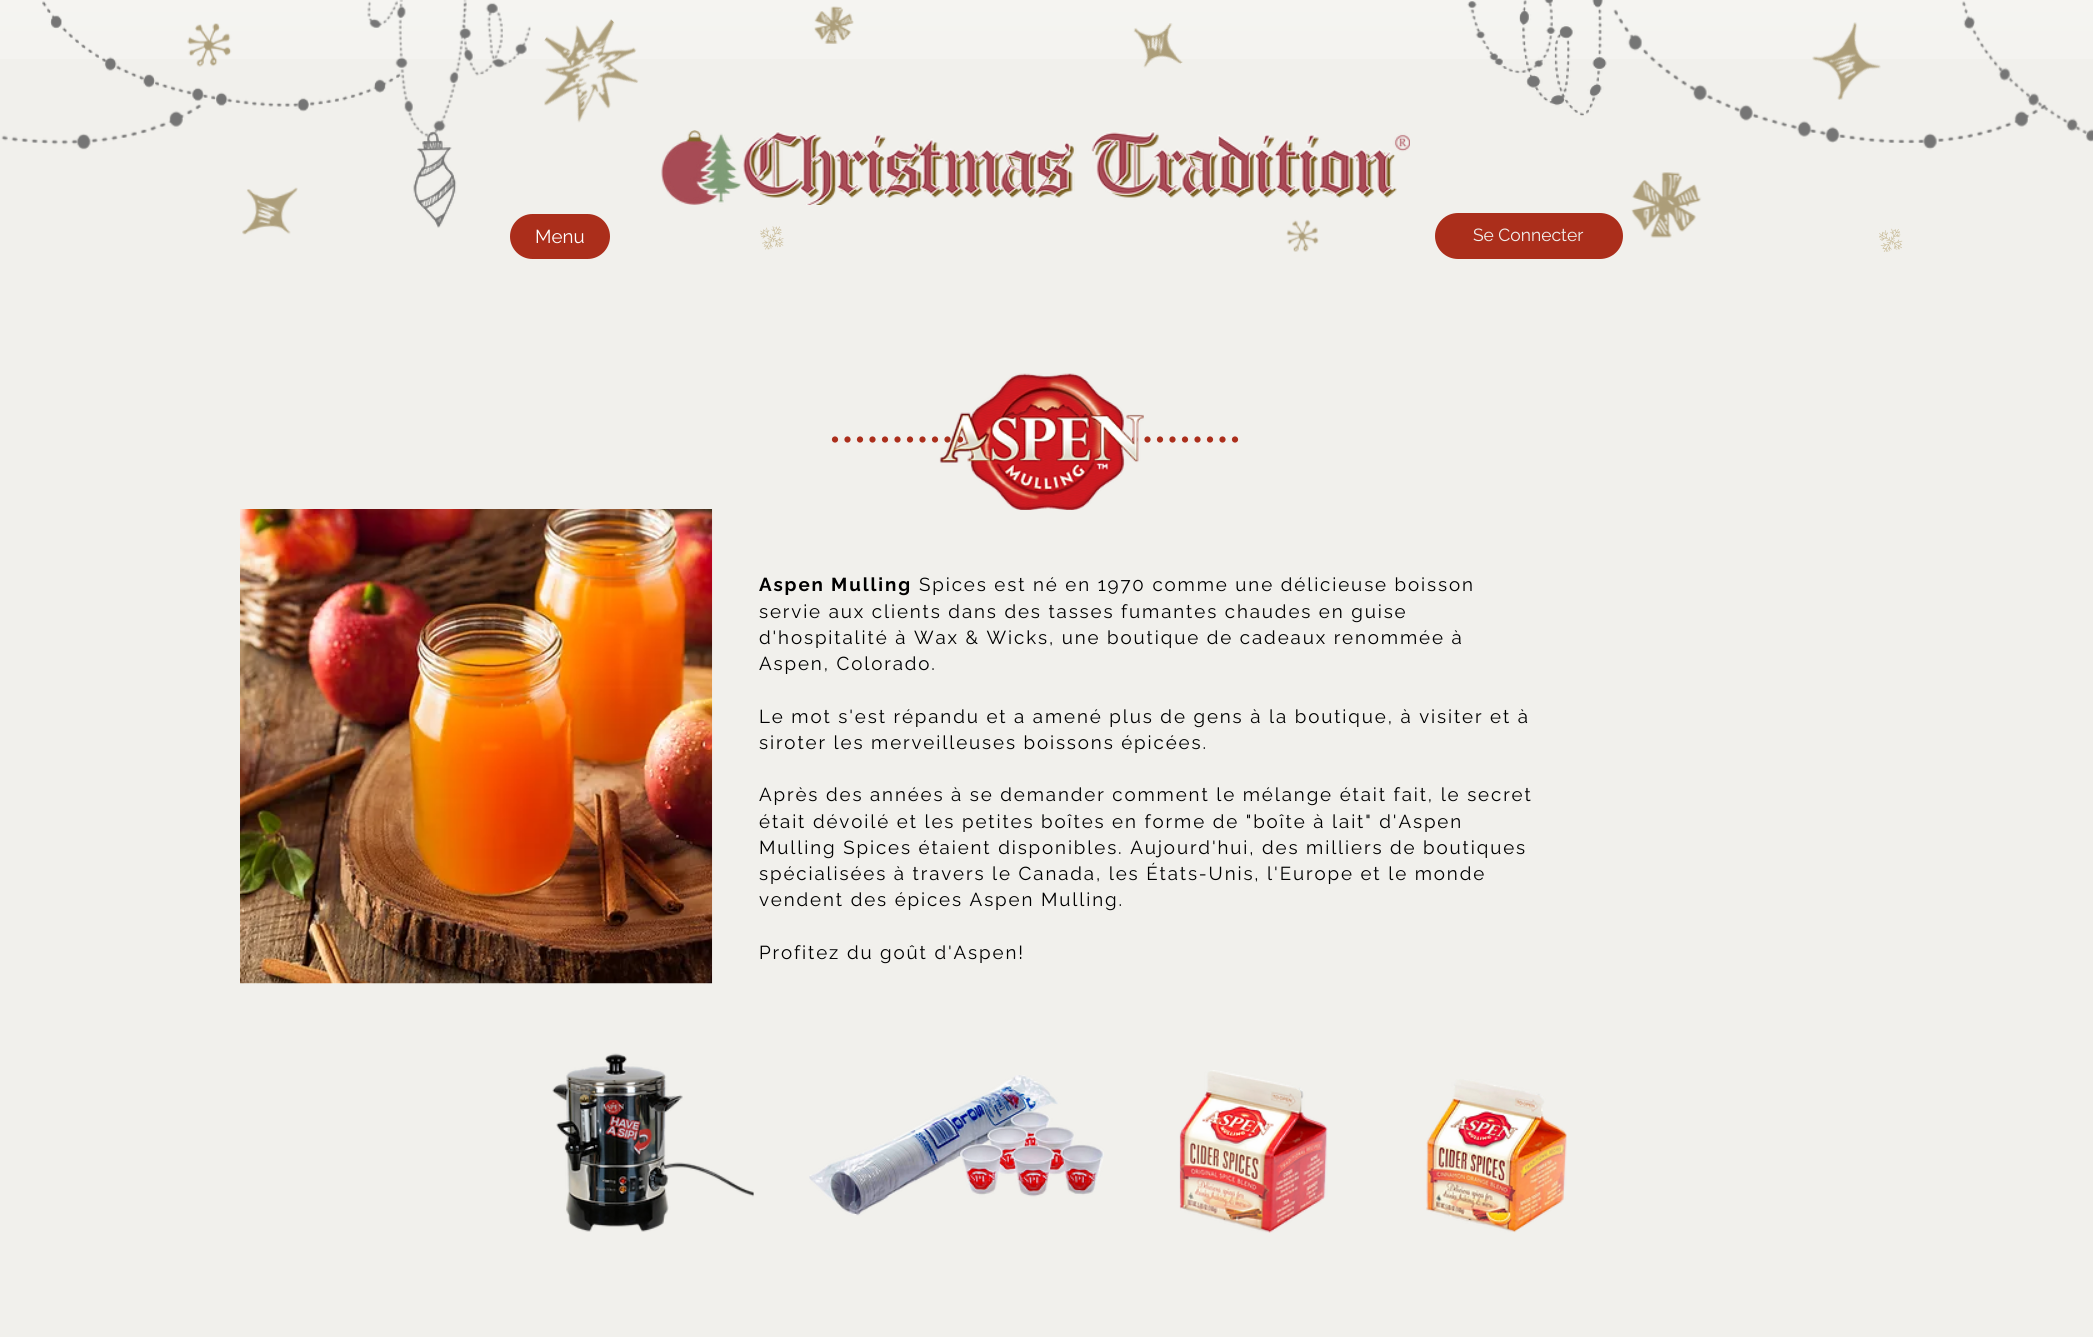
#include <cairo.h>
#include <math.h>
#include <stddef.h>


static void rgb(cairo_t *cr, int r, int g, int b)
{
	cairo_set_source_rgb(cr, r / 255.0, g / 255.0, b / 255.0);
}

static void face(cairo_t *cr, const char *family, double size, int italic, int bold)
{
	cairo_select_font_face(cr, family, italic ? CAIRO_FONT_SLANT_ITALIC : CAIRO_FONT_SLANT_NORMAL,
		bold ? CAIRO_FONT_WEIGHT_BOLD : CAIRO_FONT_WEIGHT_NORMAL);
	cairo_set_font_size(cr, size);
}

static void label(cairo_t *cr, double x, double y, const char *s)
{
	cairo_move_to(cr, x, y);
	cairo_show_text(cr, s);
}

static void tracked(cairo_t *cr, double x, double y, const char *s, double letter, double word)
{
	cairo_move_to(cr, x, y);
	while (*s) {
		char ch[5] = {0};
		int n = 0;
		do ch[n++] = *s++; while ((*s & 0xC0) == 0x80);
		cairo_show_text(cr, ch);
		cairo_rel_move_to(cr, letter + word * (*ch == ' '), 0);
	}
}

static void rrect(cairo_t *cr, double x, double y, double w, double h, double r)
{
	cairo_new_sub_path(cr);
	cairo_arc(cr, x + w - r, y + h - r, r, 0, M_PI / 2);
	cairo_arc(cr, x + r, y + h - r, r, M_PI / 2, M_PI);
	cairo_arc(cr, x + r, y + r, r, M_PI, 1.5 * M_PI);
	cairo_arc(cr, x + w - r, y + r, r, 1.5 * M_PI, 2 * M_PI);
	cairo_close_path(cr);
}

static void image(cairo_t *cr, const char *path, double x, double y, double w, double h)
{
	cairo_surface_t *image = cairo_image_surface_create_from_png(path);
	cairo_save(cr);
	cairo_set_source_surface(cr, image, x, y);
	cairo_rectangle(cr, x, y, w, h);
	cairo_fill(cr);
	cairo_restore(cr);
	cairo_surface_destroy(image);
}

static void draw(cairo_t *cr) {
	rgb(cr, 241, 240, 236);
	cairo_paint(cr);
	image(cr, "image0.png", 0, 0, 2093, 59);
	image(cr, "image9.png", 187, 23, 45, 44);
	image(cr, "image12.png", 1, 104, 201, 46);
	image(cr, "image1.png", 42, 1, 359, 111);
	image(cr, "image2.png", 367, 0, 164, 137);
	image(cr, "image3.png", 814, 6, 40, 38);
	image(cr, "image5.png", 1519, 0, 88, 116);
	image(cr, "image4.png", 1467, 0, 89, 74);
	image(cr, "image6.png", 1961, 1, 132, 141);
	image(cr, "image7.png", 544, 19, 95, 104);
	image(cr, "image8.png", 1613, 9, 434, 141);
	image(cr, "image10.png", 1133, 23, 50, 45);
	image(cr, "image11.png", 1812, 22, 69, 78);
	image(cr, "image13.png", 242, 187, 56, 48);
	image(cr, "image14.png", 413, 131, 44, 97);
	image(cr, "image15.png", 661, 130, 749, 75);
	image(cr, "image16.png", 1631, 172, 71, 66);
	rgb(cr, 171, 46, 27);
	rrect(cr, 510, 214, 100, 45, 22.5);
	cairo_fill(cr);
	face(cr, "Raleway", 18.75, 0, 0);
	rgb(cr, 255, 255, 255);
	label(cr, 535, 243, "Menu");
	image(cr, "image17.png", 760, 226, 24, 24);
	image(cr, "image18.png", 1286, 219, 33, 33);
	rgb(cr, 171, 46, 27);
	rrect(cr, 1435, 213, 188, 46, 23);
	cairo_fill(cr);
	face(cr, "Raleway", 17.5, 0, 0);
	rgb(cr, 241, 240, 236);
	label(cr, 1473, 241, "Se Connecter");
	image(cr, "image19.png", 1879, 228, 24, 24);
	cairo_new_path(cr);
	cairo_move_to(cr, 835, 439.5);
	cairo_line_to(cr, 1245, 439.5);
	rgb(cr, 171, 46, 27);
	cairo_set_line_width(cr, 6.2);
	cairo_set_line_cap(cr, CAIRO_LINE_CAP_ROUND);
	cairo_set_dash(cr, (double[]){0, 12.5}, 2, 0);
	cairo_stroke(cr);
	image(cr, "image20.png", 939, 373, 205, 137);
	image(cr, "image21.png", 240, 509, 473, 475);
	face(cr, "Raleway", 18.75, 0, 1);
	rgb(cr, 0, 0, 0);
	tracked(cr, 759, 591, "Aspen Mulling", 1.88, 0);
	face(cr, "Raleway", 18.75, 0, 0);
	tracked(cr, 919, 591, "Spices est né en 1970 comme une délicieuse boisson", 1.88, 0);
	tracked(cr, 759, 618, "servie aux clients dans des tasses fumantes chaudes en guise", 1.88, 0);
	tracked(cr, 759, 644, "d'hospitalité à Wax & Wicks, une boutique de cadeaux renommée à", 1.88, 0);
	tracked(cr, 759, 670, "Aspen, Colorado.", 1.88, 0);
	tracked(cr, 759, 723, "Le mot s'est répandu et a amené plus de gens à la boutique, à visiter et à", 1.88, 0);
	tracked(cr, 759, 749, "siroter les merveilleuses boissons épicées.", 1.88, 0);
	tracked(cr, 759, 801, "Après des années à se demander comment le mélange était fait, le secret", 1.88, 0);
	tracked(cr, 759, 828, "était dévoilé et les petites boîtes en forme de \"boîte à lait\" d'Aspen", 1.88, 0);
	tracked(cr, 759, 854, "Mulling Spices étaient disponibles. Aujourd'hui, des milliers de boutiques", 1.88, 0);
	tracked(cr, 759, 880, "spécialisées à travers le Canada, les États-Unis, l'Europe et le monde", 1.88, 0);
	tracked(cr, 759, 906, "vendent des épices Aspen Mulling.", 1.88, 0);
	tracked(cr, 759, 959, "Profitez du goût d'Aspen!", 1.88, 0);
	image(cr, "image22.png", 552, 1053, 202, 179);
	image(cr, "image23.png", 809, 1075, 295, 141);
	image(cr, "image24.png", 1179, 1070, 149, 163);
	image(cr, "image25.png", 1426, 1079, 141, 154);
}

int main(void) {
	cairo_surface_t *surface = cairo_image_surface_create(CAIRO_FORMAT_RGB24, 2093, 1337);
	cairo_t *cr = cairo_create(surface);
	cairo_font_options_t *options = cairo_font_options_create();
	cairo_font_options_set_hint_metrics(options, CAIRO_HINT_METRICS_OFF);
	cairo_font_options_set_hint_style(options, CAIRO_HINT_STYLE_NONE);
	cairo_set_font_options(cr, options);
	cairo_set_miter_limit(cr, 4);
	draw(cr);
	cairo_surface_write_to_png(surface, "render.png");
	cairo_font_options_destroy(options);
	cairo_destroy(cr);
	cairo_surface_destroy(surface);
	return 0;
}
